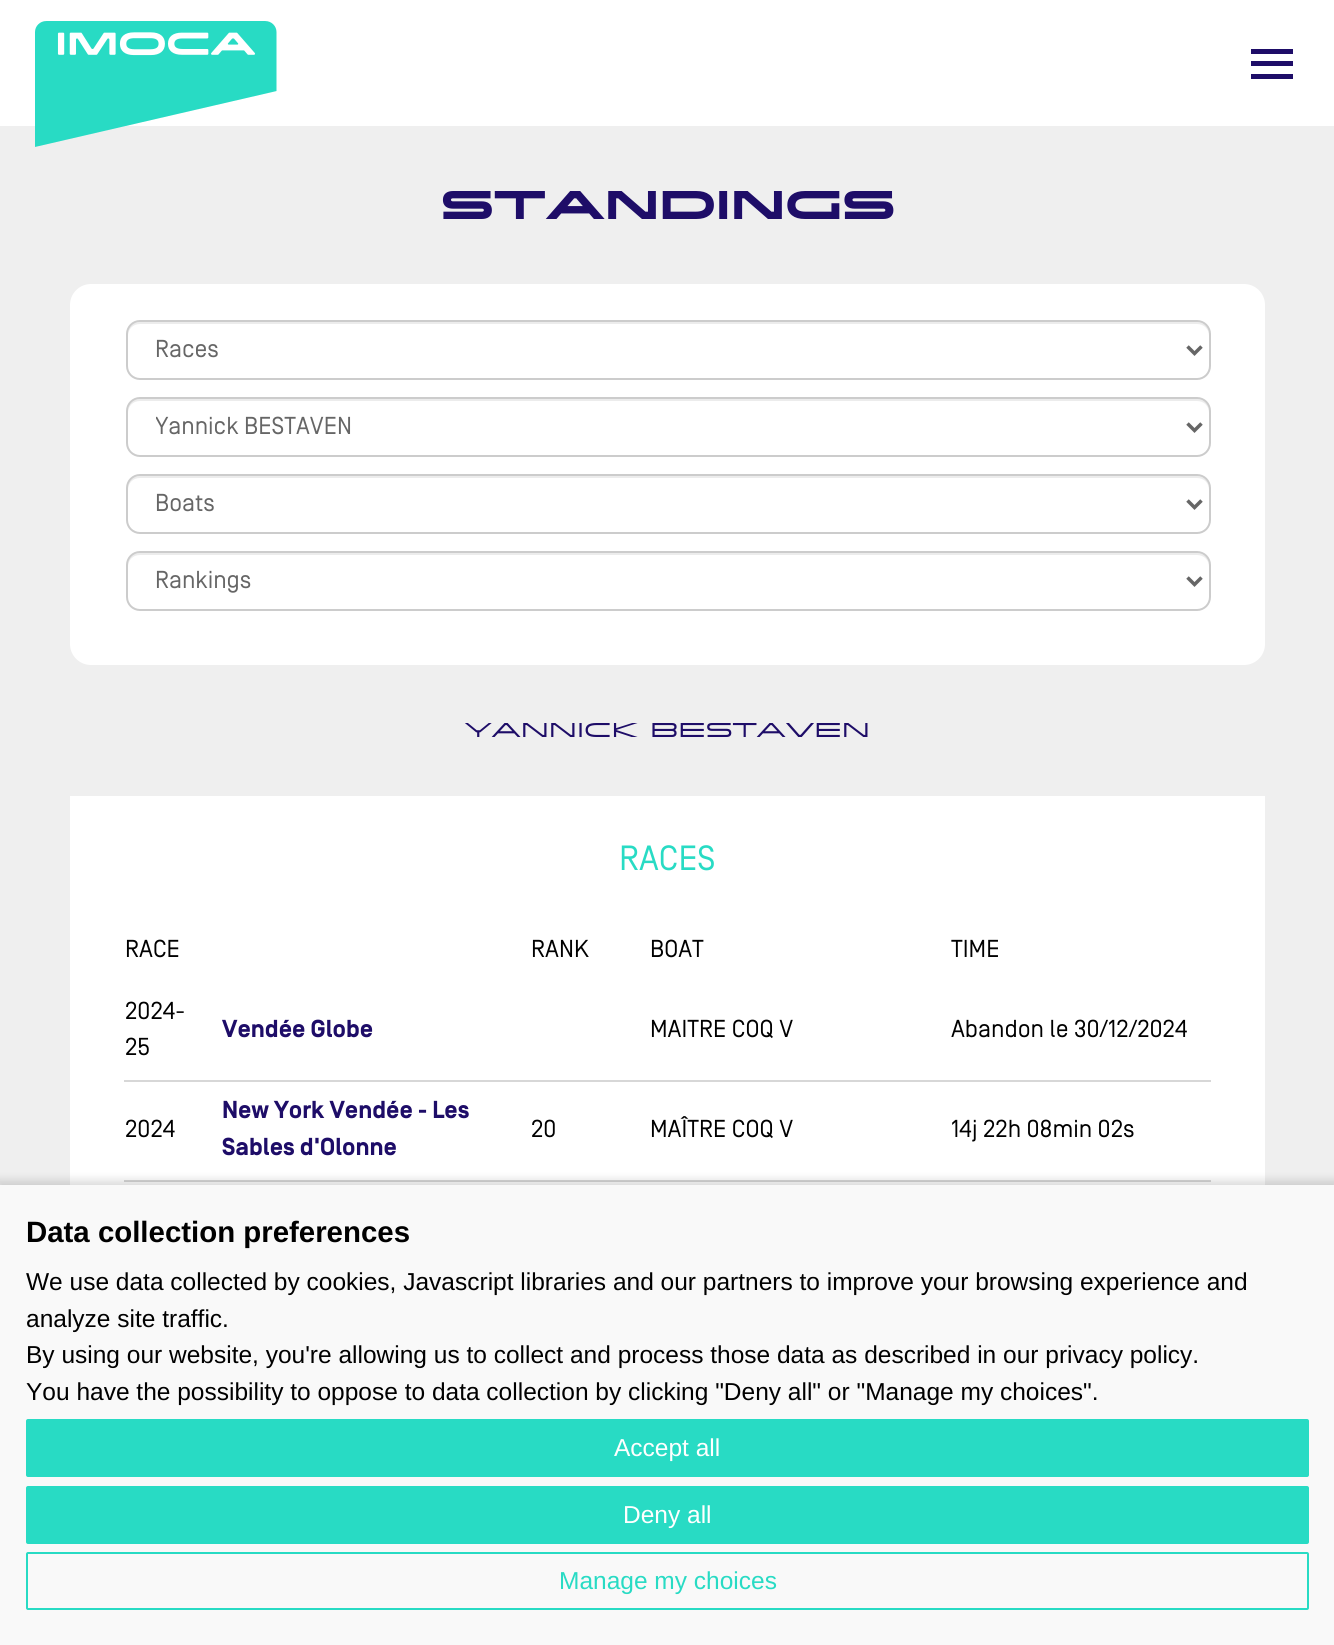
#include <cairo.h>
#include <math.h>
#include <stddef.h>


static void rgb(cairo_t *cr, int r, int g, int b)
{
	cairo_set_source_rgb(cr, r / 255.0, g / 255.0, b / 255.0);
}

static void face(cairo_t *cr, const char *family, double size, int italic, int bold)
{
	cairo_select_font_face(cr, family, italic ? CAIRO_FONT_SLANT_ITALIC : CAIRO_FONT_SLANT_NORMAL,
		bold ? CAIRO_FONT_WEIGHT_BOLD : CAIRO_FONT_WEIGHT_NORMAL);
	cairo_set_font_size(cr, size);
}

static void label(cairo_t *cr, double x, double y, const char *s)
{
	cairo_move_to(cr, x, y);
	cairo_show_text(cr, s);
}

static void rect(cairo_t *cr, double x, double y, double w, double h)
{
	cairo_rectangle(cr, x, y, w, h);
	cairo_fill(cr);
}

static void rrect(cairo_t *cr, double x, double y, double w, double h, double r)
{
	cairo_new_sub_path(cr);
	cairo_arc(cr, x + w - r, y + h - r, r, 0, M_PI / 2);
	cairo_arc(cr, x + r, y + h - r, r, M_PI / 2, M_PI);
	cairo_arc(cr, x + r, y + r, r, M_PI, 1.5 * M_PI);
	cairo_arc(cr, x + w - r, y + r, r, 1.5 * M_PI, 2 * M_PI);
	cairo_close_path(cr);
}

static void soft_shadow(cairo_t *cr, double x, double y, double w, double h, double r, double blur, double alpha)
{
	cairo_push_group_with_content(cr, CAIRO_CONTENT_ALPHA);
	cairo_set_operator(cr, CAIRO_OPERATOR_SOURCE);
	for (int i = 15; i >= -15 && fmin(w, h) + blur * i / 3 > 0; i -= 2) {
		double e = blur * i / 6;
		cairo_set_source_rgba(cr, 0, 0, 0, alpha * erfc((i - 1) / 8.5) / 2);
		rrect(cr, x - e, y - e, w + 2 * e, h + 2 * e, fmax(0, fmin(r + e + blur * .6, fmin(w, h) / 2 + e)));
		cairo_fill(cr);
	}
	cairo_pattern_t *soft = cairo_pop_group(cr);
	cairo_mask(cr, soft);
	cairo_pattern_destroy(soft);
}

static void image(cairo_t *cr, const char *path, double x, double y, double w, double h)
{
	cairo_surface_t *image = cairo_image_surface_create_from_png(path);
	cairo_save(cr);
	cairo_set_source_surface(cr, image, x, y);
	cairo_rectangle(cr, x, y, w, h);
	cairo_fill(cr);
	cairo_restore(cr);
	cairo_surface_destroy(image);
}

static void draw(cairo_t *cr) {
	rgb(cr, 239, 239, 239);
	cairo_paint(cr);
	rgb(cr, 255, 255, 255);
	rect(cr, 0, 0, 1334, 126);
	image(cr, "image0.png", 35, 21, 242, 126);
	rgb(cr, 30, 13, 104);
	rect(cr, 1251, 74, 42, 5);
	rect(cr, 1251, 49, 42, 5);
	rect(cr, 1251, 61, 42, 5);
	face(cr, "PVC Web", 35, 0, 1);
	label(cr, 441, 219, "STANDINGS");
	rgb(cr, 255, 255, 255);
	rrect(cr, 70, 284, 1195, 381, 21);
	cairo_fill(cr);
	rgb(cr, 236, 236, 236);
	cairo_new_path(cr);
	cairo_move_to(cr, 140, 324);
	cairo_line_to(cr, 1197, 324);
	cairo_curve_to(cr, 1204, 324, 1209, 329, 1209, 336);
	cairo_line_to(cr, 1209, 334);
	cairo_curve_to(cr, 1209, 327, 1204, 322, 1197, 322);
	cairo_line_to(cr, 140, 322);
	cairo_curve_to(cr, 133, 322, 128, 327, 128, 334);
	cairo_line_to(cr, 128, 336);
	cairo_curve_to(cr, 128, 329, 133, 324, 140, 324);
	cairo_close_path(cr);
	cairo_fill(cr);
	rrect(cr, 127, 321, 1083, 58, 13);
	rgb(cr, 204, 204, 204);
	cairo_stroke(cr);
	cairo_new_path(cr);
	cairo_move_to(cr, 1187.5, 346.5);
	cairo_line_to(cr, 1194.5, 353.5);
	cairo_line_to(cr, 1201.5, 346.5);
	rgb(cr, 102, 102, 102);
	cairo_set_line_width(cr, 3.5);
	cairo_stroke(cr);
	face(cr, "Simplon", 24.5, 0, 0);
	label(cr, 155, 357, "Races");
	rgb(cr, 236, 236, 236);
	cairo_new_path(cr);
	cairo_move_to(cr, 140, 401);
	cairo_line_to(cr, 1197, 401);
	cairo_curve_to(cr, 1204, 401, 1209, 406, 1209, 413);
	cairo_line_to(cr, 1209, 411);
	cairo_curve_to(cr, 1209, 404, 1204, 399, 1197, 399);
	cairo_line_to(cr, 140, 399);
	cairo_curve_to(cr, 133, 399, 128, 404, 128, 411);
	cairo_line_to(cr, 128, 413);
	cairo_curve_to(cr, 128, 406, 133, 401, 140, 401);
	cairo_close_path(cr);
	cairo_fill(cr);
	rrect(cr, 127, 398, 1083, 58, 13);
	rgb(cr, 204, 204, 204);
	cairo_set_line_width(cr, 2);
	cairo_stroke(cr);
	cairo_new_path(cr);
	cairo_move_to(cr, 1187.5, 423.5);
	cairo_line_to(cr, 1194.5, 430.5);
	cairo_line_to(cr, 1201.5, 423.5);
	rgb(cr, 102, 102, 102);
	cairo_set_line_width(cr, 3.5);
	cairo_stroke(cr);
	cairo_save(cr);
	cairo_rectangle(cr, 156, 411, 1004, 32);
	cairo_clip(cr);
	label(cr, 155, 434, "Yannick BESTAVEN");
	cairo_restore(cr);
	rgb(cr, 236, 236, 236);
	cairo_new_path(cr);
	cairo_move_to(cr, 140, 478);
	cairo_line_to(cr, 1197, 478);
	cairo_curve_to(cr, 1204, 478, 1209, 483, 1209, 490);
	cairo_line_to(cr, 1209, 488);
	cairo_curve_to(cr, 1209, 481, 1204, 476, 1197, 476);
	cairo_line_to(cr, 140, 476);
	cairo_curve_to(cr, 133, 476, 128, 481, 128, 488);
	cairo_line_to(cr, 128, 490);
	cairo_curve_to(cr, 128, 483, 133, 478, 140, 478);
	cairo_close_path(cr);
	cairo_fill(cr);
	rrect(cr, 127, 475, 1083, 58, 13);
	rgb(cr, 204, 204, 204);
	cairo_set_line_width(cr, 2);
	cairo_stroke(cr);
	cairo_new_path(cr);
	cairo_move_to(cr, 1187.5, 500.5);
	cairo_line_to(cr, 1194.5, 507.5);
	cairo_line_to(cr, 1201.5, 500.5);
	rgb(cr, 102, 102, 102);
	cairo_set_line_width(cr, 3.5);
	cairo_stroke(cr);
	label(cr, 155, 511, "Boats");
	rgb(cr, 236, 236, 236);
	cairo_new_path(cr);
	cairo_move_to(cr, 140, 555);
	cairo_line_to(cr, 1197, 555);
	cairo_curve_to(cr, 1204, 555, 1209, 560, 1209, 567);
	cairo_line_to(cr, 1209, 565);
	cairo_curve_to(cr, 1209, 558, 1204, 553, 1197, 553);
	cairo_line_to(cr, 140, 553);
	cairo_curve_to(cr, 133, 553, 128, 558, 128, 565);
	cairo_line_to(cr, 128, 567);
	cairo_curve_to(cr, 128, 560, 133, 555, 140, 555);
	cairo_close_path(cr);
	cairo_fill(cr);
	rrect(cr, 127, 552, 1083, 58, 13);
	rgb(cr, 204, 204, 204);
	cairo_set_line_width(cr, 2);
	cairo_stroke(cr);
	cairo_new_path(cr);
	cairo_move_to(cr, 1187.5, 577.5);
	cairo_line_to(cr, 1194.5, 584.5);
	cairo_line_to(cr, 1201.5, 577.5);
	rgb(cr, 102, 102, 102);
	cairo_set_line_width(cr, 3.5);
	cairo_stroke(cr);
	label(cr, 155, 588, "Rankings");
	face(cr, "PVC Web", 17.5, 0, 0);
	rgb(cr, 30, 13, 104);
	label(cr, 465, 737, "YANNICK BESTAVEN");
	rgb(cr, 255, 255, 255);
	rect(cr, 70, 796, 1195, 389);
	face(cr, "Simplon", 35, 0, 0);
	rgb(cr, 40, 219, 196);
	label(cr, 619, 870, "RACES");
	face(cr, "Simplon", 24.5, 0, 0);
	rgb(cr, 0, 0, 0);
	label(cr, 125, 957, "RACE");
	label(cr, 531, 957, "RANK");
	label(cr, 650, 957, "BOAT");
	label(cr, 951, 957, "TIME");
	label(cr, 125, 1019, "2024-");
	label(cr, 125, 1055, "25");
	face(cr, "Simplon", 24.5, 0, 1);
	rgb(cr, 30, 13, 104);
	label(cr, 222, 1037, "Vendée Globe");
	face(cr, "Simplon", 24.5, 0, 0);
	rgb(cr, 0, 0, 0);
	label(cr, 650, 1037, "MAITRE COQ V");
	label(cr, 951, 1037, "Abandon le 30/12/2024");
	rgb(cr, 215, 215, 215);
	rect(cr, 124, 1080, 1087, 2);
	rgb(cr, 0, 0, 0);
	label(cr, 125, 1137, "2024");
	face(cr, "Simplon", 24.5, 0, 1);
	rgb(cr, 30, 13, 104);
	label(cr, 222, 1118, "New York Vendée - Les");
	label(cr, 222, 1155, "Sables d'Olonne");
	face(cr, "Simplon", 24.5, 0, 0);
	rgb(cr, 0, 0, 0);
	label(cr, 531, 1137, "20");
	label(cr, 650, 1137, "MAÎTRE COQ V");
	label(cr, 951, 1137, "14j 22h 08min 02s");
	rgb(cr, 215, 215, 215);
	rect(cr, 124, 1180, 1087, 2);
	rgb(cr, 0, 0, 0);
	soft_shadow(cr, -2, 1180, 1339, 463, 0, 4.5, 0.14);
	rgb(cr, 249, 249, 249);
	rect(cr, 0, 1185, 1334, 460);
	face(cr, "Liberation Sans", 29.4, 0, 1);
	rgb(cr, 0, 0, 0);
	label(cr, 26, 1242, "Data collection preferences");
	face(cr, "Liberation Sans", 24.5, 0, 0);
	label(cr, 26, 1290, "We use data collected by cookies, Javascript libraries and our partners to improve your browsing experience and");
	label(cr, 26, 1327, "analyze site traffic.");
	label(cr, 26, 1363, "By using our website, you're allowing us to collect and process those data as described in our privacy policy.");
	label(cr, 26, 1400, "You have the possibility to oppose to data collection by clicking \"Deny all\" or \"Manage my choices\".");
	rgb(cr, 40, 219, 196);
	rrect(cr, 27, 1420, 1281, 56, 1);
	cairo_fill_preserve(cr);
	cairo_set_line_width(cr, 2);
	cairo_stroke(cr);
	rgb(cr, 255, 255, 255);
	label(cr, 614, 1456, "Accept all");
	rgb(cr, 40, 219, 196);
	rrect(cr, 27, 1487, 1281, 56, 1);
	cairo_fill_preserve(cr);
	cairo_stroke(cr);
	rgb(cr, 255, 255, 255);
	label(cr, 623, 1523, "Deny all");
	rrect(cr, 27, 1553, 1281, 56, 1);
	rgb(cr, 40, 219, 196);
	cairo_stroke(cr);
	label(cr, 559, 1589, "Manage my choices");
}

int main(void) {
	cairo_surface_t *surface = cairo_image_surface_create(CAIRO_FORMAT_RGB24, 1334, 1645);
	cairo_t *cr = cairo_create(surface);
	cairo_font_options_t *options = cairo_font_options_create();
	cairo_font_options_set_hint_metrics(options, CAIRO_HINT_METRICS_OFF);
	cairo_font_options_set_hint_style(options, CAIRO_HINT_STYLE_NONE);
	cairo_set_font_options(cr, options);
	cairo_set_miter_limit(cr, 4);
	draw(cr);
	cairo_surface_write_to_png(surface, "render.png");
	cairo_font_options_destroy(options);
	cairo_destroy(cr);
	cairo_surface_destroy(surface);
	return 0;
}
